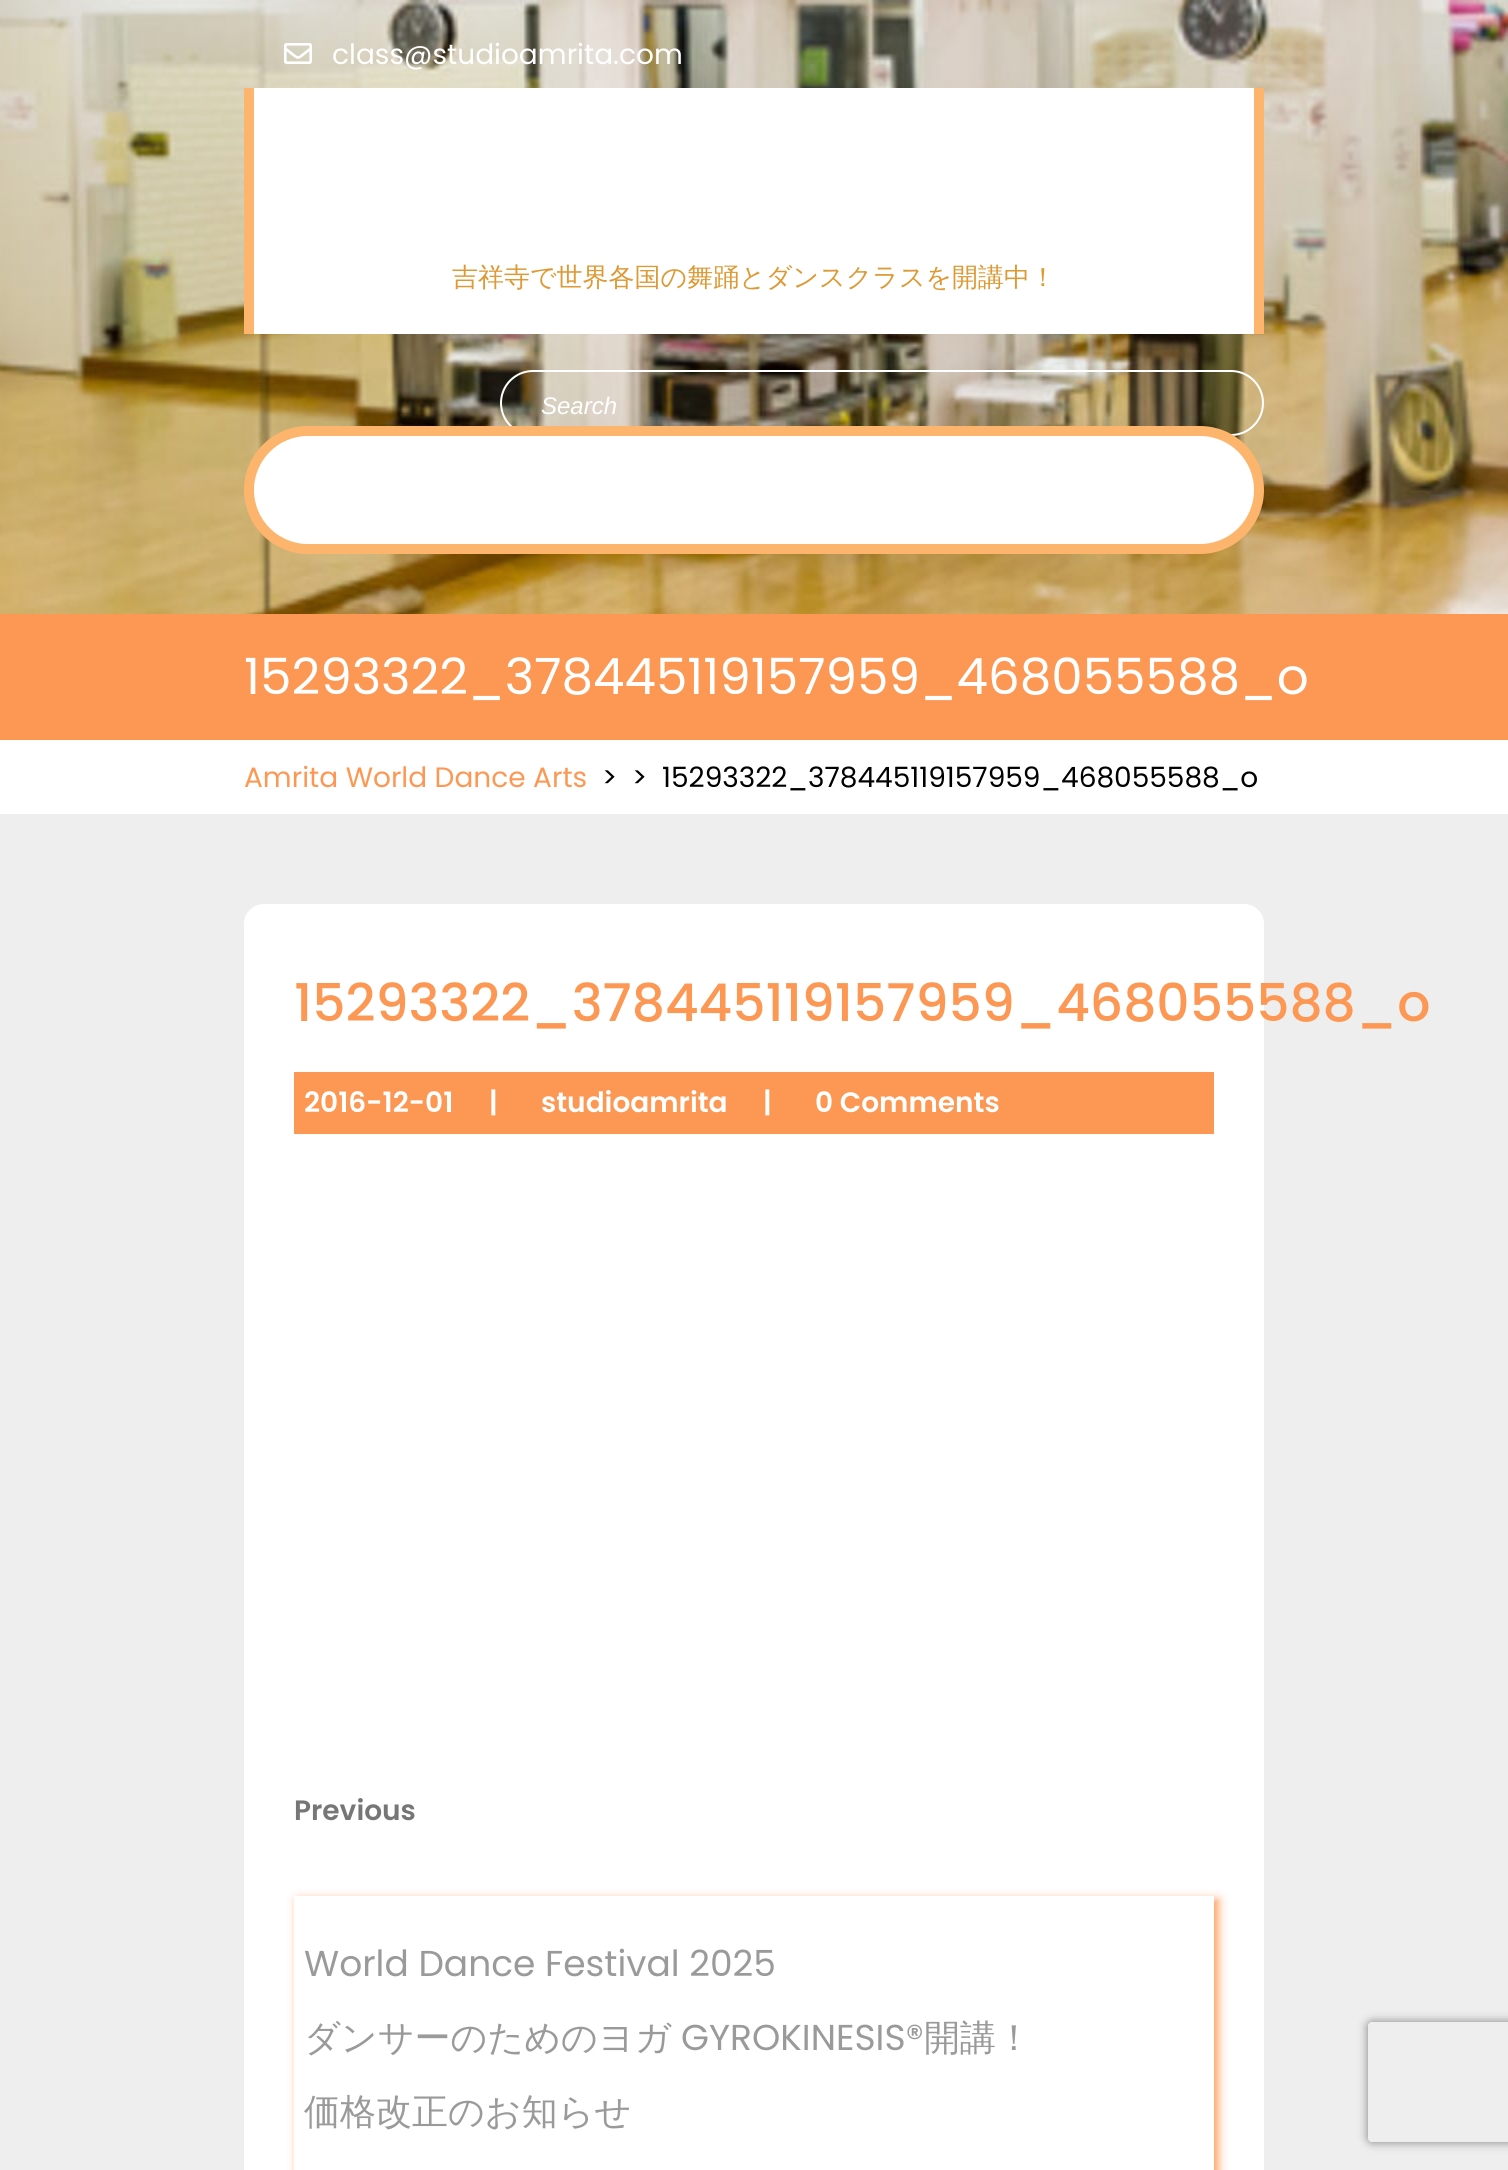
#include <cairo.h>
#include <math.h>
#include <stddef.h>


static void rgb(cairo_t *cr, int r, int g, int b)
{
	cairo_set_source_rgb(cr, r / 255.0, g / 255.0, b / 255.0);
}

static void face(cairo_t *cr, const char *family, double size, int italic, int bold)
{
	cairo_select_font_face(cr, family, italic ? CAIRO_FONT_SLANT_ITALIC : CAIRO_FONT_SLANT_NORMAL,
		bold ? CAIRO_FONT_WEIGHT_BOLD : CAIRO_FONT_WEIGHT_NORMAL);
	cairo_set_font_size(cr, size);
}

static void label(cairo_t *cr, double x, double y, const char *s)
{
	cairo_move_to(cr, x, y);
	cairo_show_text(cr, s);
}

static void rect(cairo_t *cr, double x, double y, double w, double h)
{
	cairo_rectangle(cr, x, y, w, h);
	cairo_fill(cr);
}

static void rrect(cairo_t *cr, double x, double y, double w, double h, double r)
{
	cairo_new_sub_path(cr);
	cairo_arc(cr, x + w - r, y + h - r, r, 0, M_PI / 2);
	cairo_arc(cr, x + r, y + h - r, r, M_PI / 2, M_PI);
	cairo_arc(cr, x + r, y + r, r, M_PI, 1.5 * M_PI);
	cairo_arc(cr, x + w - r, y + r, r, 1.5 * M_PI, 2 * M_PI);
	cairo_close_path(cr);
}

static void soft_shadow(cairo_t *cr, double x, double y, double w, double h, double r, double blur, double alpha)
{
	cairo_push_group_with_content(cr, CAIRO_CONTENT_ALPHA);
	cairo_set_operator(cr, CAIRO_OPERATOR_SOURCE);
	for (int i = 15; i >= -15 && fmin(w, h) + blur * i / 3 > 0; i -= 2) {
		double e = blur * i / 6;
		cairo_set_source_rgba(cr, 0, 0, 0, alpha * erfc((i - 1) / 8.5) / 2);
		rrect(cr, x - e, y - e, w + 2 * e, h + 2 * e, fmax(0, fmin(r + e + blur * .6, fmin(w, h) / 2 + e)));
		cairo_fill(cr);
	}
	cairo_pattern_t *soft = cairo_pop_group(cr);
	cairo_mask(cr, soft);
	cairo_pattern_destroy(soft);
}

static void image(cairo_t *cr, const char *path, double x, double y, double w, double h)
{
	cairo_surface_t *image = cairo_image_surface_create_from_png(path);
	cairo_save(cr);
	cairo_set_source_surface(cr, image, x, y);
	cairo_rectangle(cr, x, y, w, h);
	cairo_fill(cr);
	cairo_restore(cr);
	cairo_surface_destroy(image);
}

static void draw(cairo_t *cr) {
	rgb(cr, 238, 238, 238);
	cairo_paint(cr);
	image(cr, "image0.png", 0, 0, 1508, 614);
	image(cr, "image1.png", 284, 43, 28, 21);
	face(cr, "Poppins", 28, 0, 0);
	rgb(cr, 255, 255, 255);
	label(cr, 332, 64, "class@studioamrita.com");
	rect(cr, 254, 88, 1000, 246);
	rgb(cr, 253, 181, 109);
	rect(cr, 1254, 88, 10, 246);
	rect(cr, 244, 88, 10, 246);
	face(cr, "WenQuanYi Zen Hei Medium", 26, 0, 0);
	rgb(cr, 221, 153, 51);
	label(cr, 452, 286, "吉祥寺で世界各国の舞踊とダンスクラスを開講中！");
	rrect(cr, 501, 371, 762, 64, 32);
	rgb(cr, 255, 255, 255);
	cairo_stroke(cr);
	face(cr, "Liberation Sans", 24, 1, 0);
	label(cr, 541, 414, "Search");
	rrect(cr, 249, 431, 1010, 118, 59);
	cairo_fill_preserve(cr);
	rgb(cr, 253, 181, 109);
	cairo_set_line_width(cr, 10);
	cairo_stroke(cr);
	rgb(cr, 253, 152, 84);
	rect(cr, 0, 614, 1508, 126);
	face(cr, "Poppins", 50, 0, 0);
	rgb(cr, 255, 255, 255);
	label(cr, 244, 694, "15293322_378445119157959_468055588_o");
	rect(cr, 0, 740, 1508, 74);
	face(cr, "Poppins", 28, 0, 0);
	rgb(cr, 253, 152, 84);
	label(cr, 244, 787, "Amrita World Dance Arts");
	rgb(cr, 0, 0, 0);
	label(cr, 602, 787, ">  >");
	label(cr, 662, 787, "15293322_378445119157959_468055588_o");
	rgb(cr, 255, 255, 255);
	rrect(cr, 244, 904, 1020, 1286, 20);
	cairo_fill(cr);
	face(cr, "Poppins Medium", 52, 0, 0);
	rgb(cr, 253, 152, 84);
	label(cr, 294, 1021, "15293322_378445119157959_468055588_o");
	rect(cr, 294, 1072, 920, 62);
	face(cr, "Poppins SemiBold", 28, 0, 0);
	rgb(cr, 255, 255, 255);
	label(cr, 304, 1112, "2016-12-01");
	label(cr, 489, 1112, "|");
	label(cr, 541, 1112, "studioamrita");
	label(cr, 763, 1112, "|");
	label(cr, 815, 1112, "0 Comments");
	rgb(cr, 118, 118, 118);
	label(cr, 294, 1820, "Previous");
	cairo_save(cr);
	cairo_set_fill_rule(cr, CAIRO_FILL_RULE_EVEN_ODD);
	cairo_new_path(cr);
	cairo_move_to(cr, 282, 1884);
	cairo_line_to(cr, 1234, 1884);
	cairo_line_to(cr, 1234, 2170);
	cairo_line_to(cr, 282, 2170);
	cairo_close_path(cr);
	cairo_move_to(cr, 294, 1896);
	cairo_line_to(cr, 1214, 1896);
	cairo_line_to(cr, 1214, 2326);
	cairo_line_to(cr, 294, 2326);
	cairo_close_path(cr);
	cairo_clip(cr);
	rgb(cr, 253, 152, 84);
	soft_shadow(cr, 298, 1900, 920, 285, 0, 5, 1);
	cairo_restore(cr);
	face(cr, "Poppins", 36, 0, 0);
	rgb(cr, 154, 154, 154);
	label(cr, 304, 1976, "World Dance Festival 2025");
	face(cr, "WenQuanYi Zen Hei Medium", 36, 0, 0);
	label(cr, 304, 2050, "ダンサーのためのヨガ");
	face(cr, "Poppins", 36, 0, 0);
	label(cr, 681, 2050, "GYROKINESIS®");
	face(cr, "WenQuanYi Zen Hei Medium", 36, 0, 0);
	label(cr, 924, 2050, "開講！");
	label(cr, 304, 2124, "価格改正のお知らせ");
	cairo_save(cr);
	cairo_set_fill_rule(cr, CAIRO_FILL_RULE_EVEN_ODD);
	cairo_new_path(cr);
	cairo_move_to(cr, 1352, 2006);
	cairo_line_to(cr, 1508, 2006);
	cairo_line_to(cr, 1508, 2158);
	cairo_line_to(cr, 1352, 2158);
	cairo_close_path(cr);
	cairo_move_to(cr, 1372, 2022);
	cairo_line_to(cr, 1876, 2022);
	cairo_curve_to(cr, 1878, 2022, 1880, 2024, 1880, 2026);
	cairo_line_to(cr, 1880, 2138);
	cairo_curve_to(cr, 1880, 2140, 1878, 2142, 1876, 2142);
	cairo_line_to(cr, 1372, 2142);
	cairo_curve_to(cr, 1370, 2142, 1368, 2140, 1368, 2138);
	cairo_line_to(cr, 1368, 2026);
	cairo_curve_to(cr, 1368, 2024, 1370, 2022, 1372, 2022);
	cairo_close_path(cr);
	cairo_clip(cr);
	rgb(cr, 128, 128, 128);
	soft_shadow(cr, 1368, 2022, 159, 120, 4, 5, 1);
	cairo_restore(cr);
}

int main(void) {
	cairo_surface_t *surface = cairo_image_surface_create(CAIRO_FORMAT_RGB24, 1508, 2170);
	cairo_t *cr = cairo_create(surface);
	cairo_font_options_t *options = cairo_font_options_create();
	cairo_font_options_set_hint_metrics(options, CAIRO_HINT_METRICS_OFF);
	cairo_font_options_set_hint_style(options, CAIRO_HINT_STYLE_NONE);
	cairo_set_font_options(cr, options);
	cairo_set_miter_limit(cr, 4);
	draw(cr);
	cairo_surface_write_to_png(surface, "render.png");
	cairo_font_options_destroy(options);
	cairo_destroy(cr);
	cairo_surface_destroy(surface);
	return 0;
}
